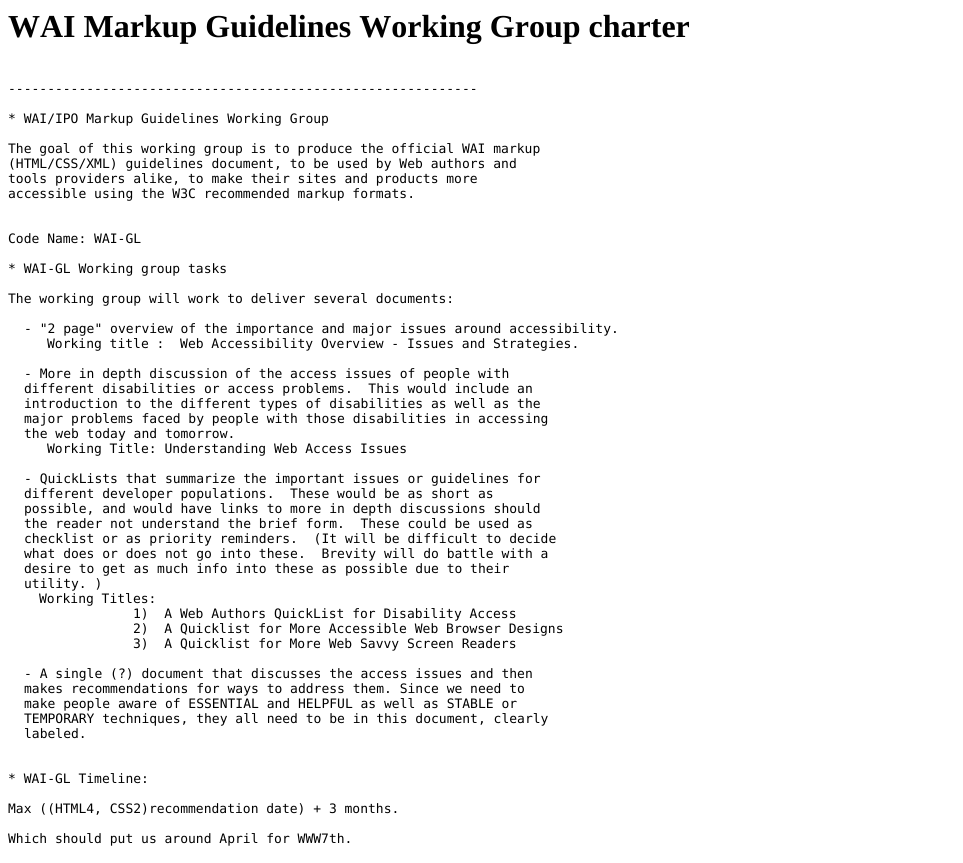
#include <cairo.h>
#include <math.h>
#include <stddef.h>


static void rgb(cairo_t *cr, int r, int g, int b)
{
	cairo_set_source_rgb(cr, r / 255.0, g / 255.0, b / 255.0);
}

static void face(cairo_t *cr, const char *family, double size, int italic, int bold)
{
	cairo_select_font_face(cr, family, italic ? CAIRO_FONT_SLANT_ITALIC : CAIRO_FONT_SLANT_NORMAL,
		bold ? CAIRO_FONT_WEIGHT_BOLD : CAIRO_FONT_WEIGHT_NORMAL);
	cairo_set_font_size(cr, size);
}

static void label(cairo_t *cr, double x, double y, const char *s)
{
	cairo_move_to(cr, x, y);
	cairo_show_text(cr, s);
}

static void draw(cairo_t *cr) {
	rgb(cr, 255, 255, 255);
	cairo_paint(cr);
	face(cr, "Liberation Serif", 32, 0, 1);
	rgb(cr, 0, 0, 0);
	label(cr, 8, 37, "WAI Markup Guidelines Working Group charter");
	face(cr, "DejaVu Sans Mono", 13, 0, 0);
	label(cr, 8, 93, "------------------------------------------------------------");
	label(cr, 8, 123, "* WAI/IPO Markup Guidelines Working Group");
	label(cr, 8, 153, "The goal of this working group is to produce the official WAI markup");
	label(cr, 8, 168, "(HTML/CSS/XML) guidelines document, to be used by Web authors and");
	label(cr, 8, 183, "tools providers alike, to make their sites and products more");
	label(cr, 8, 198, "accessible using the W3C recommended markup formats.");
	label(cr, 8, 243, "Code Name: WAI-GL");
	label(cr, 8, 273, "* WAI-GL Working group tasks");
	label(cr, 8, 303, "The working group will work to deliver several documents:");
	label(cr, 24, 333, "- \"2 page\" overview of the importance and major issues around accessibility.");
	label(cr, 47, 348, "Working title :  Web Accessibility Overview - Issues and Strategies.");
	label(cr, 24, 378, "- More in depth discussion of the access issues of people with");
	label(cr, 24, 393, "different disabilities or access problems.  This would include an");
	label(cr, 24, 408, "introduction to the different types of disabilities as well as the");
	label(cr, 24, 423, "major problems faced by people with those disabilities in accessing");
	label(cr, 24, 438, "the web today and tomorrow.");
	label(cr, 47, 453, "Working Title: Understanding Web Access Issues");
	label(cr, 24, 483, "- QuickLists that summarize the important issues or guidelines for");
	label(cr, 24, 498, "different developer populations.  These would be as short as");
	label(cr, 24, 513, "possible, and would have links to more in depth discussions should");
	label(cr, 24, 528, "the reader not understand the brief form.  These could be used as");
	label(cr, 24, 543, "checklist or as priority reminders.  (It will be difficult to decide");
	label(cr, 24, 558, "what does or does not go into these.  Brevity will do battle with a");
	label(cr, 24, 573, "desire to get as much info into these as possible due to their");
	label(cr, 24, 588, "utility. )");
	label(cr, 39, 603, "Working Titles:");
	label(cr, 133, 618, "1)  A Web Authors QuickList for Disability Access");
	label(cr, 133, 633, "2)  A Quicklist for More Accessible Web Browser Designs");
	label(cr, 133, 648, "3)  A Quicklist for More Web Savvy Screen Readers");
	label(cr, 24, 678, "- A single (?) document that discusses the access issues and then");
	label(cr, 24, 693, "makes recommendations for ways to address them. Since we need to");
	label(cr, 24, 708, "make people aware of ESSENTIAL and HELPFUL as well as STABLE or");
	label(cr, 24, 723, "TEMPORARY techniques, they all need to be in this document, clearly");
	label(cr, 24, 738, "labeled.");
	label(cr, 8, 783, "* WAI-GL Timeline:");
	label(cr, 8, 813, "Max ((HTML4, CSS2)recommendation date) + 3 months.");
	label(cr, 8, 843, "Which should put us around April for WWW7th.");
}

int main(void) {
	cairo_surface_t *surface = cairo_image_surface_create(CAIRO_FORMAT_RGB24, 963, 863);
	cairo_t *cr = cairo_create(surface);
	cairo_font_options_t *options = cairo_font_options_create();
	cairo_font_options_set_hint_metrics(options, CAIRO_HINT_METRICS_OFF);
	cairo_font_options_set_hint_style(options, CAIRO_HINT_STYLE_NONE);
	cairo_set_font_options(cr, options);
	cairo_set_miter_limit(cr, 4);
	draw(cr);
	cairo_surface_write_to_png(surface, "render.png");
	cairo_font_options_destroy(options);
	cairo_destroy(cr);
	cairo_surface_destroy(surface);
	return 0;
}
